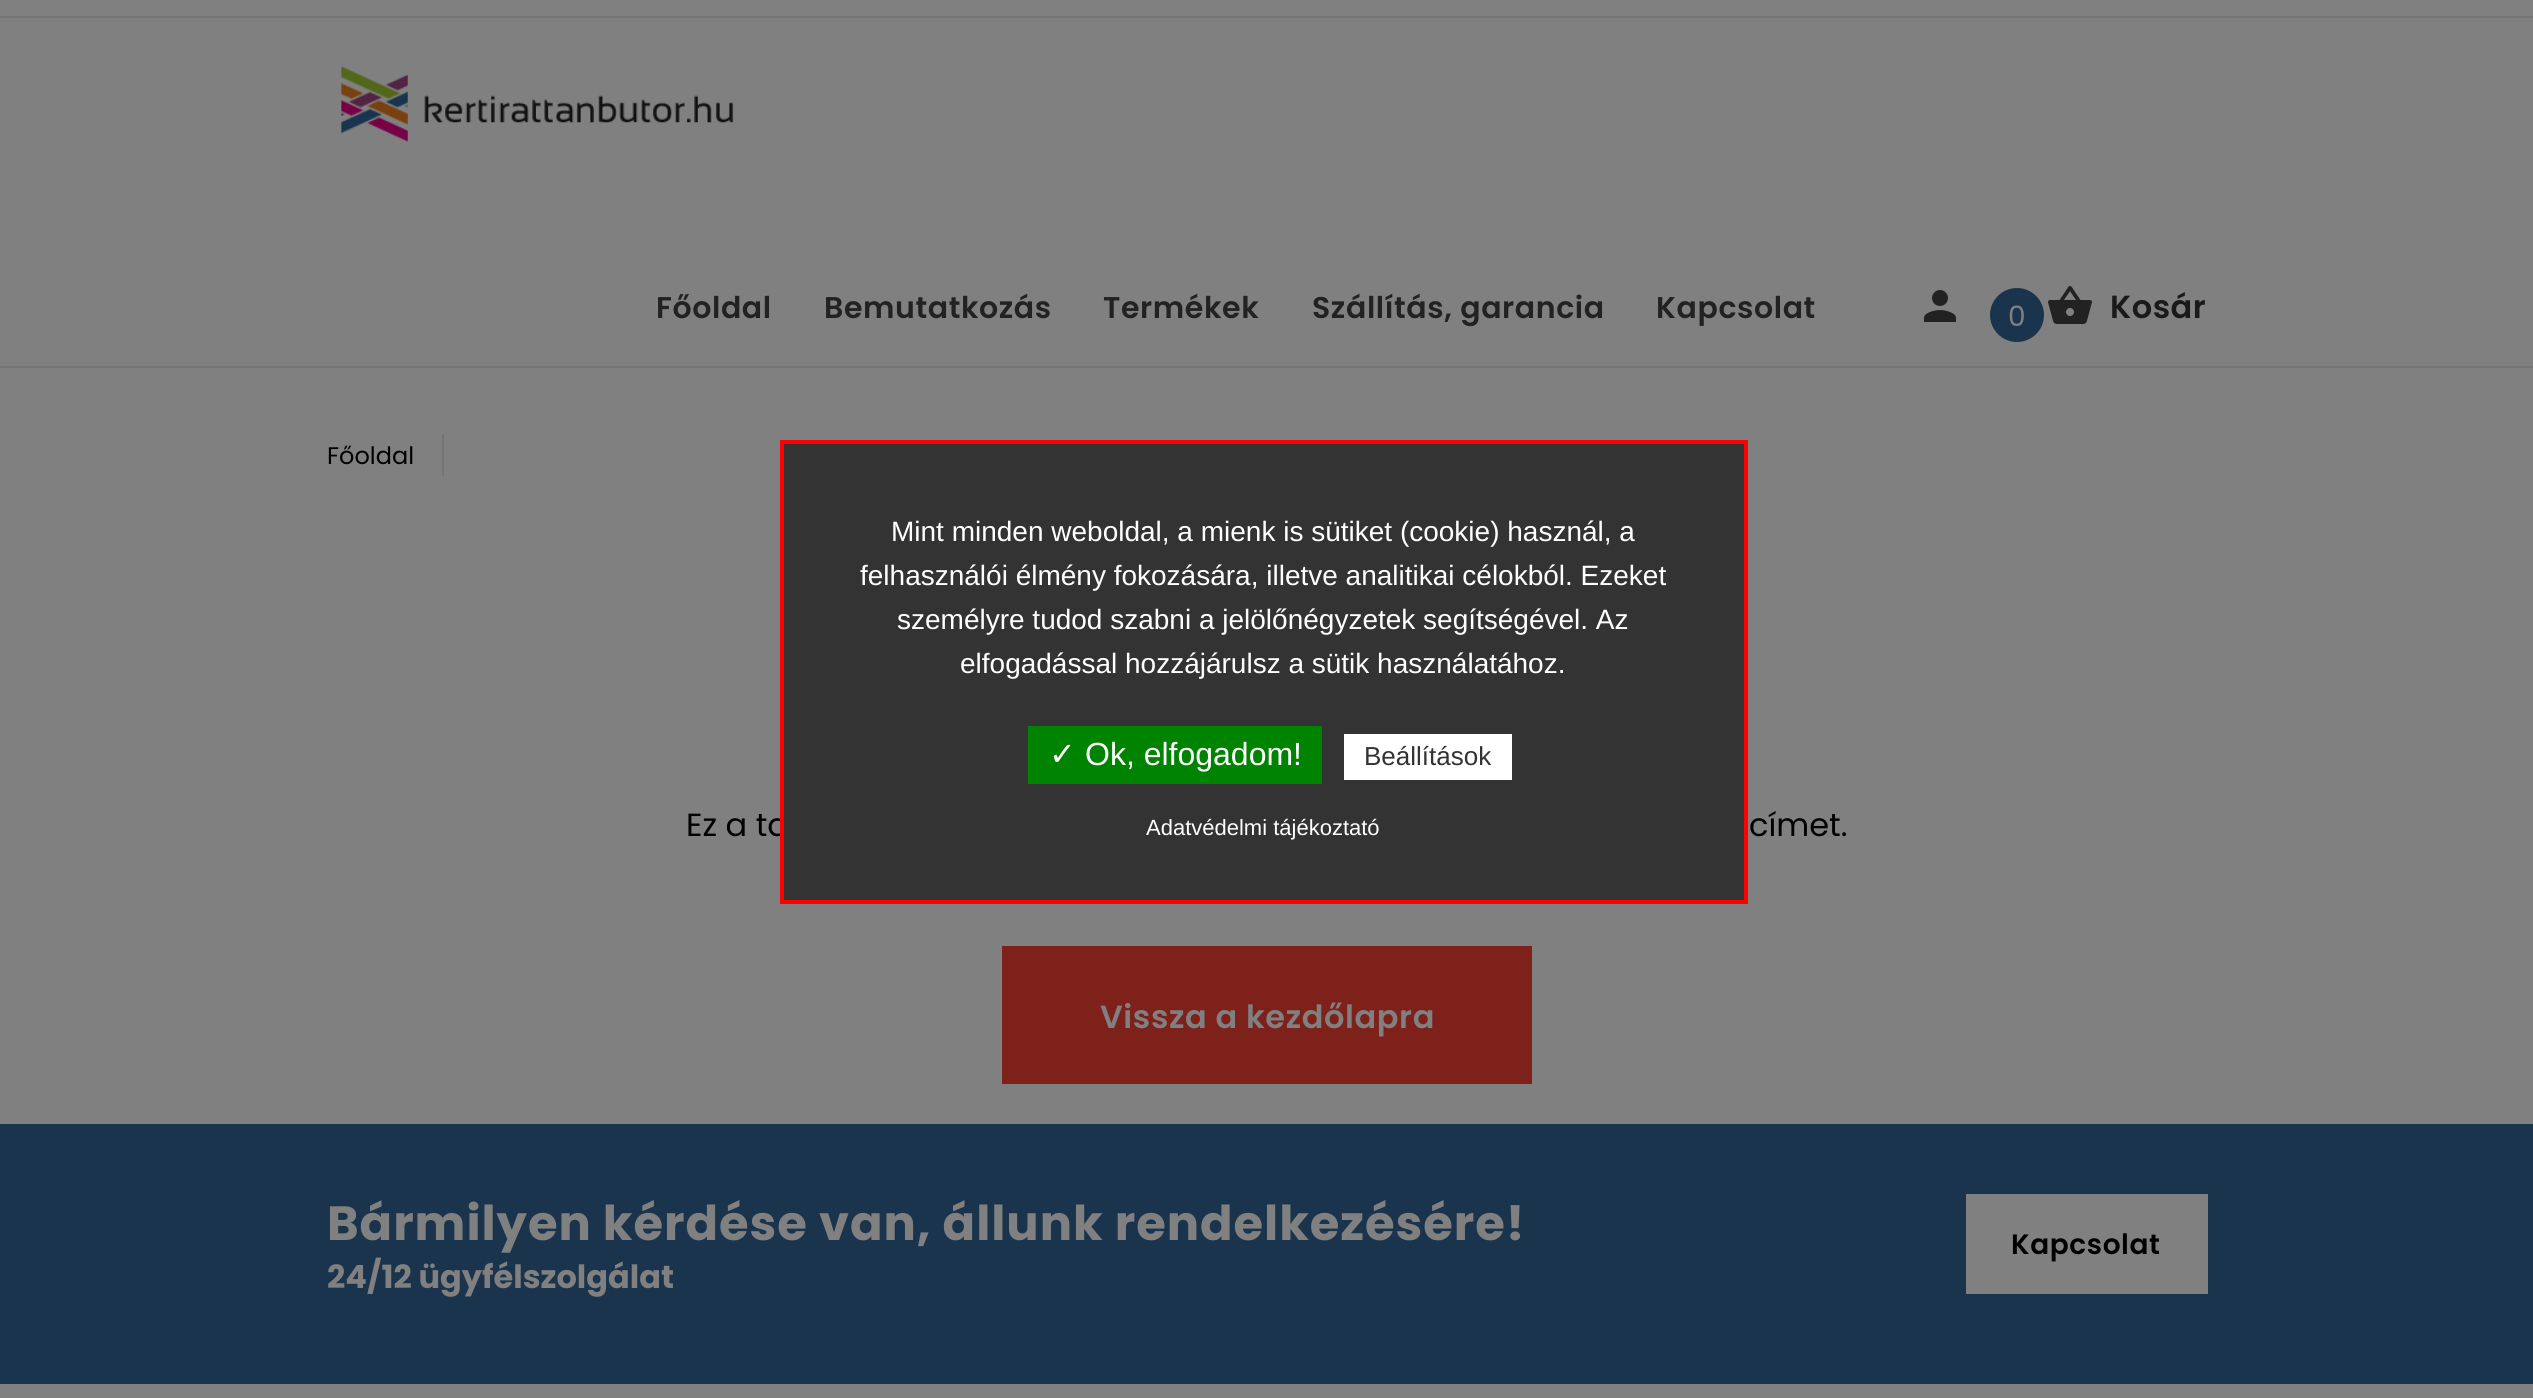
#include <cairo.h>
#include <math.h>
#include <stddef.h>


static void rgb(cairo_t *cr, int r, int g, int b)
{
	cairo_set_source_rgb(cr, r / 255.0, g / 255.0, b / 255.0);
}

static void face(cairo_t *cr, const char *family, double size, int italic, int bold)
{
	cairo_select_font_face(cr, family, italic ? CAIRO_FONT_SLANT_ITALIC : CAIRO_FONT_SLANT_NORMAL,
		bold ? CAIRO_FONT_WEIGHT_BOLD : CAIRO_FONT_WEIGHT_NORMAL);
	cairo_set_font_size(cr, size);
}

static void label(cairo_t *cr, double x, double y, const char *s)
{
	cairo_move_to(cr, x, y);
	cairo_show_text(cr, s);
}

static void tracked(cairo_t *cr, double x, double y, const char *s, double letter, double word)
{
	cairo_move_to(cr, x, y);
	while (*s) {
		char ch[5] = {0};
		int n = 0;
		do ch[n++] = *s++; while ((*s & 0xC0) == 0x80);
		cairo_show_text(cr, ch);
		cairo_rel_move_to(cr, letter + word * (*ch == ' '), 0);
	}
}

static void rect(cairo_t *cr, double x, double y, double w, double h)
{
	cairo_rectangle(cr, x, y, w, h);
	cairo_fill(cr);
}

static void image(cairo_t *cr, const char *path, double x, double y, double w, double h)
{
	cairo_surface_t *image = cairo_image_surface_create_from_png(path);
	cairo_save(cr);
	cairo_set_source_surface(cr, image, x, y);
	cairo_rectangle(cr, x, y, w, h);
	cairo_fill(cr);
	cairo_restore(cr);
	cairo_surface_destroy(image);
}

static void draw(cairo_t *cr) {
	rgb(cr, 128, 128, 128);
	cairo_paint(cr);
	rgb(cr, 117, 117, 117);
	rect(cr, 0, 16, 2533, 2);
	rect(cr, 0, 366, 2533, 2);
	image(cr, "image0.png", 341, 66, 393, 76);
	face(cr, "Poppins SemiBold", 30, 0, 0);
	rgb(cr, 34, 34, 34);
	tracked(cr, 656, 318, "Főoldal", 0.6, 0);
	tracked(cr, 824, 318, "Bemutatkozás", 0.6, 0);
	tracked(cr, 1103, 318, "Termékek", 0.6, 0);
	tracked(cr, 1312, 318, "Szállítás, garancia", 0.6, 0);
	tracked(cr, 1656, 318, "Kapcsolat", 0.6, 0);
	image(cr, "image1.png", 1923, 290, 34, 32);
	rgb(cr, 26, 52, 77);
	cairo_arc(cr, 2017, 315, 27, 0, 2 * M_PI);
	cairo_fill(cr);
	face(cr, "Poppins", 28, 0, 0);
	rgb(cr, 128, 128, 128);
	label(cr, 2008, 326, "0");
	image(cr, "image2.png", 2048, 286, 44, 38);
	face(cr, "Poppins SemiBold", 32, 0, 0);
	rgb(cr, 26, 26, 26);
	tracked(cr, 2110, 318, "Kosár", 0.5, 0);
	rgb(cr, 117, 117, 117);
	rect(cr, 442, 434, 2, 42);
	face(cr, "Poppins", 24, 0, 0);
	rgb(cr, 0, 0, 0);
	label(cr, 327, 464, "Főoldal");
	face(cr, "Poppins", 32, 0, 0);
	label(cr, 686, 836, "Ez a ta");
	label(cr, 1749, 836, "címet.");
	rgb(cr, 127, 33, 27);
	rect(cr, 1002, 946, 530, 138);
	face(cr, "Poppins SemiBold", 32, 0, 0);
	rgb(cr, 128, 128, 128);
	tracked(cr, 1100, 1028, "Vissza a kezdőlapra", 0.6, 0);
	rgb(cr, 51, 51, 51);
	cairo_rectangle(cr, 782, 442, 964, 460);
	cairo_fill_preserve(cr);
	rgb(cr, 255, 0, 0);
	cairo_set_line_width(cr, 4);
	cairo_stroke(cr);
	face(cr, "Liberation Sans", 28, 0, 0);
	rgb(cr, 255, 255, 255);
	label(cr, 891, 541, "Mint minden weboldal, a mienk is sütiket (cookie) használ, a");
	label(cr, 860, 585, "felhasználói élmény fokozására, illetve analitikai célokból. Ezeket");
	label(cr, 897, 629, "személyre tudod szabni a jelölőnégyzetek segítségével. Az");
	label(cr, 960, 673, "elfogadással hozzájárulsz a sütik használatához.");
	rgb(cr, 0, 131, 0);
	rect(cr, 1028, 726, 294, 58);
	face(cr, "DejaVu Sans", 32, 0, 0);
	rgb(cr, 255, 255, 255);
	label(cr, 1049, 765, "✓");
	face(cr, "Liberation Sans", 32, 0, 0);
	label(cr, 1085, 765, "Ok, elfogadom!");
	rect(cr, 1344, 734, 168, 46);
	face(cr, "Liberation Sans", 26, 0, 0);
	rgb(cr, 51, 51, 51);
	label(cr, 1364, 765, "Beállítások");
	face(cr, "Liberation Sans", 22, 0, 0);
	rgb(cr, 255, 255, 255);
	label(cr, 1146, 835, "Adatvédelmi tájékoztató");
	rgb(cr, 26, 52, 77);
	rect(cr, 0, 1124, 2533, 260);
	face(cr, "Poppins", 48, 0, 1);
	rgb(cr, 128, 128, 128);
	tracked(cr, 327, 1240, "Bármilyen kérdése van, állunk rendelkezésére!", 0.95, 0);
	face(cr, "Poppins", 32, 0, 1);
	label(cr, 327, 1288, "24/12 ügyfélszolgálat");
	rect(cr, 1966, 1194, 242, 100);
	face(cr, "Poppins SemiBold", 28, 0, 0);
	rgb(cr, 0, 0, 0);
	tracked(cr, 2011, 1254, "Kapcsolat", 0.6, 0);
}

int main(void) {
	cairo_surface_t *surface = cairo_image_surface_create(CAIRO_FORMAT_RGB24, 2533, 1398);
	cairo_t *cr = cairo_create(surface);
	cairo_font_options_t *options = cairo_font_options_create();
	cairo_font_options_set_hint_metrics(options, CAIRO_HINT_METRICS_OFF);
	cairo_font_options_set_hint_style(options, CAIRO_HINT_STYLE_NONE);
	cairo_set_font_options(cr, options);
	cairo_set_miter_limit(cr, 4);
	draw(cr);
	cairo_surface_write_to_png(surface, "render.png");
	cairo_font_options_destroy(options);
	cairo_destroy(cr);
	cairo_surface_destroy(surface);
	return 0;
}
